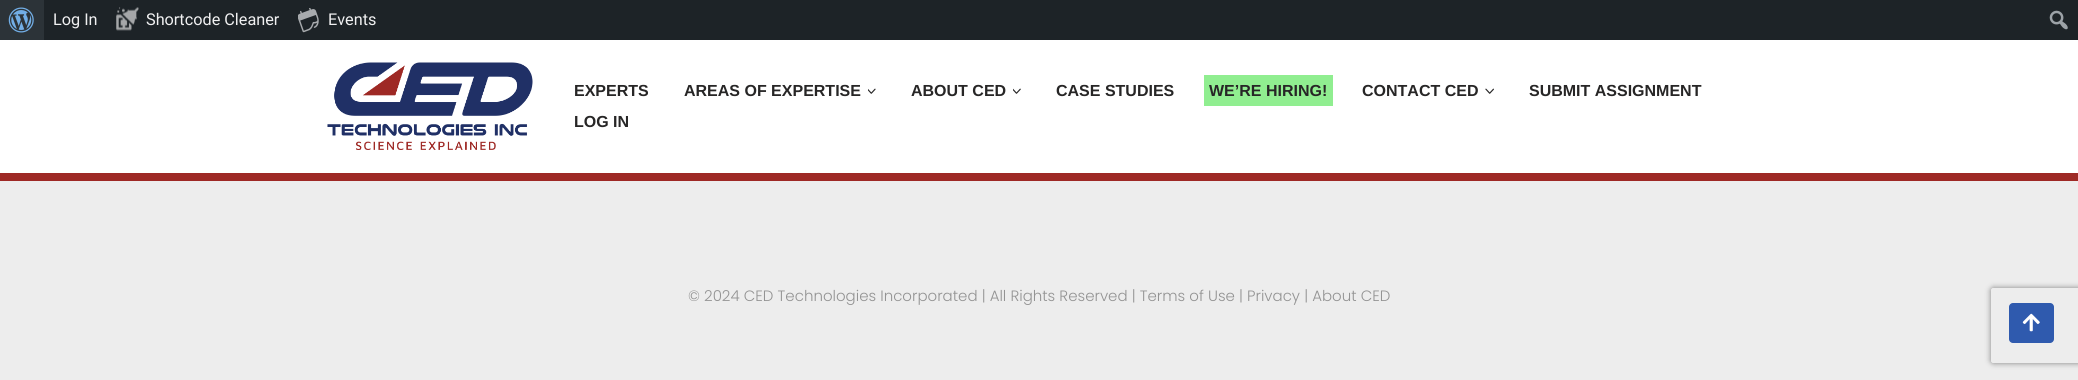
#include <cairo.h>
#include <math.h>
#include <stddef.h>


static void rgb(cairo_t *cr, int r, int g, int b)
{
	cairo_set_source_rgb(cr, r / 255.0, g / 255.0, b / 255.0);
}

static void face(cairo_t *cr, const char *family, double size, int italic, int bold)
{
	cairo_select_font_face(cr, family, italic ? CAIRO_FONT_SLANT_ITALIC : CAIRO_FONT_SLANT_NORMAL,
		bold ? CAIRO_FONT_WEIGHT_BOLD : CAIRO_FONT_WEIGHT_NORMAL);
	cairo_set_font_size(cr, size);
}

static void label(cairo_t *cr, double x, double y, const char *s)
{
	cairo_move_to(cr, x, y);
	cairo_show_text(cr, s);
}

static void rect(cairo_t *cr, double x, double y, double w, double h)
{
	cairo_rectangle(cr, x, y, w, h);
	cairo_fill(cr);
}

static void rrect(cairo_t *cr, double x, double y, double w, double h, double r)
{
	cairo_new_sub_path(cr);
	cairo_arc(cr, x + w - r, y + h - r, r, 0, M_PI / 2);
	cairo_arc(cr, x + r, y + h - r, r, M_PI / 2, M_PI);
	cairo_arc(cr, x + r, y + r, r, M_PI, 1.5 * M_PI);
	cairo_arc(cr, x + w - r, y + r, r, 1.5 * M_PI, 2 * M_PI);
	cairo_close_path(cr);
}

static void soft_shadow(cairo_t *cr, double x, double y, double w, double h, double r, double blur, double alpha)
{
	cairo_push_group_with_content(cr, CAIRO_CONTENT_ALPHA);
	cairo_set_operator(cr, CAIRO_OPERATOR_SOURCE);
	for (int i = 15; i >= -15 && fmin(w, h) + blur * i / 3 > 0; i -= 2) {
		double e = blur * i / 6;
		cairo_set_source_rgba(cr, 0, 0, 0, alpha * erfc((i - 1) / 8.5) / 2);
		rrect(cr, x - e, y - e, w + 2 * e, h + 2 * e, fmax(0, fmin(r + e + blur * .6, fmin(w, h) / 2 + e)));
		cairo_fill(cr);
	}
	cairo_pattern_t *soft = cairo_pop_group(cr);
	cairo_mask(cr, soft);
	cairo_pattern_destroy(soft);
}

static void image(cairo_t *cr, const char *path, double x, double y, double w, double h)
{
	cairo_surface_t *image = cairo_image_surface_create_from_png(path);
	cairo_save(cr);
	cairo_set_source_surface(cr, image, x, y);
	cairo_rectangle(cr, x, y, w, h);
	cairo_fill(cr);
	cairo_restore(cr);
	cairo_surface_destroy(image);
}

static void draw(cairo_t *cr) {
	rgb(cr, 237, 237, 237);
	cairo_paint(cr);
	rgb(cr, 29, 35, 39);
	rect(cr, 44, 0, 2034, 40);
	rgb(cr, 44, 51, 56);
	rect(cr, 0, 0, 44, 40);
	image(cr, "image0.png", 8, 7, 26, 26);
	face(cr, "Roboto", 16.25, 0, 0);
	rgb(cr, 240, 240, 241);
	label(cr, 53, 25, "Log In");
	image(cr, "image1.png", 116, 7, 23, 24);
	label(cr, 146, 25, "Shortcode Cleaner");
	image(cr, "image2.png", 298, 8, 21, 25);
	label(cr, 328, 25, "Events");
	image(cr, "image3.png", 2049, 10, 19, 20);
	rgb(cr, 255, 255, 255);
	rect(cr, 0, 40, 2078, 133);
	rgb(cr, 158, 41, 37);
	rect(cr, 0, 173, 2078, 8);
	image(cr, "image4.png", 327, 62, 206, 88);
	face(cr, "Liberation Sans", 16, 0, 1);
	rgb(cr, 39, 38, 38);
	label(cr, 574, 96, "EXPERTS");
	label(cr, 684, 96, "AREAS OF EXPERTISE");
	image(cr, "image5.png", 868, 88, 8, 6);
	label(cr, 911, 96, "ABOUT CED");
	image(cr, "image6.png", 1013, 88, 8, 6);
	label(cr, 1056, 96, "CASE STUDIES");
	rgb(cr, 144, 238, 144);
	rect(cr, 1204, 75, 129, 31);
	rgb(cr, 39, 38, 38);
	label(cr, 1209, 96, "WE’RE HIRING!");
	label(cr, 1362, 96, "CONTACT CED");
	image(cr, "image7.png", 1485, 88, 9, 6);
	label(cr, 1529, 96, "SUBMIT ASSIGNMENT");
	label(cr, 574, 127, "LOG IN");
	face(cr, "Poppins Light", 15, 0, 0);
	rgb(cr, 147, 147, 147);
	label(cr, 688, 301, "© 2024 CED Technologies Incorporated | All Rights Reserved | Terms of Use | Privacy | About CED");
	cairo_save(cr);
	cairo_set_fill_rule(cr, CAIRO_FILL_RULE_EVEN_ODD);
	cairo_new_path(cr);
	cairo_move_to(cr, 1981, 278);
	cairo_line_to(cr, 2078, 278);
	cairo_line_to(cr, 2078, 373);
	cairo_line_to(cr, 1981, 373);
	cairo_close_path(cr);
	cairo_move_to(cr, 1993.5, 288);
	cairo_line_to(cr, 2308.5, 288);
	cairo_curve_to(cr, 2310, 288, 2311, 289, 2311, 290.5);
	cairo_line_to(cr, 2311, 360.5);
	cairo_curve_to(cr, 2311, 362, 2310, 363, 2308.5, 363);
	cairo_line_to(cr, 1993.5, 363);
	cairo_curve_to(cr, 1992, 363, 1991, 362, 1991, 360.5);
	cairo_line_to(cr, 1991, 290.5);
	cairo_curve_to(cr, 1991, 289, 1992, 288, 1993.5, 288);
	cairo_close_path(cr);
	cairo_clip(cr);
	rgb(cr, 128, 128, 128);
	soft_shadow(cr, 1991, 288, 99, 75, 2.5, 3, 1);
	cairo_restore(cr);
	rgb(cr, 47, 90, 174);
	rrect(cr, 2009, 303, 45, 40, 4);
	cairo_fill(cr);
	image(cr, "image8.png", 2022, 313, 18, 19);
}

int main(void) {
	cairo_surface_t *surface = cairo_image_surface_create(CAIRO_FORMAT_RGB24, 2078, 380);
	cairo_t *cr = cairo_create(surface);
	cairo_font_options_t *options = cairo_font_options_create();
	cairo_font_options_set_hint_metrics(options, CAIRO_HINT_METRICS_OFF);
	cairo_font_options_set_hint_style(options, CAIRO_HINT_STYLE_NONE);
	cairo_set_font_options(cr, options);
	cairo_set_miter_limit(cr, 4);
	draw(cr);
	cairo_surface_write_to_png(surface, "render.png");
	cairo_font_options_destroy(options);
	cairo_destroy(cr);
	cairo_surface_destroy(surface);
	return 0;
}
